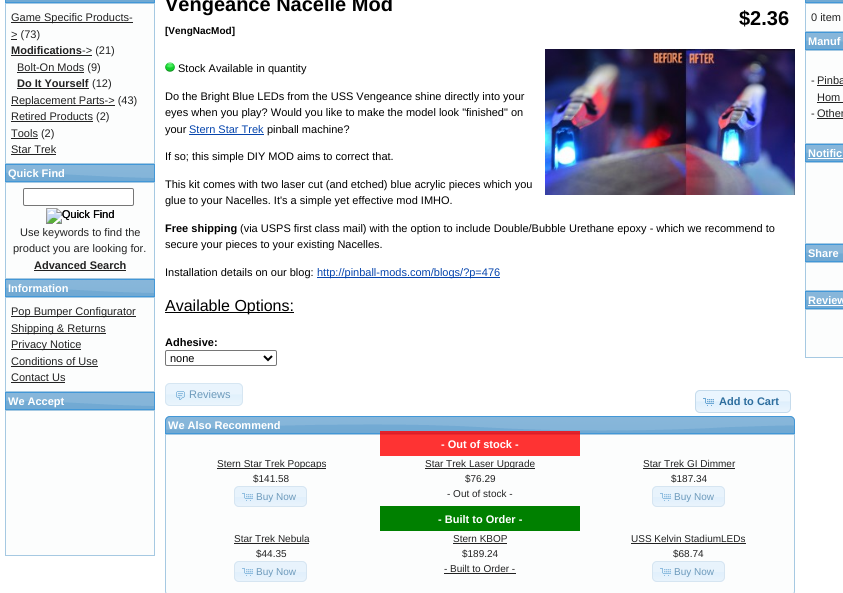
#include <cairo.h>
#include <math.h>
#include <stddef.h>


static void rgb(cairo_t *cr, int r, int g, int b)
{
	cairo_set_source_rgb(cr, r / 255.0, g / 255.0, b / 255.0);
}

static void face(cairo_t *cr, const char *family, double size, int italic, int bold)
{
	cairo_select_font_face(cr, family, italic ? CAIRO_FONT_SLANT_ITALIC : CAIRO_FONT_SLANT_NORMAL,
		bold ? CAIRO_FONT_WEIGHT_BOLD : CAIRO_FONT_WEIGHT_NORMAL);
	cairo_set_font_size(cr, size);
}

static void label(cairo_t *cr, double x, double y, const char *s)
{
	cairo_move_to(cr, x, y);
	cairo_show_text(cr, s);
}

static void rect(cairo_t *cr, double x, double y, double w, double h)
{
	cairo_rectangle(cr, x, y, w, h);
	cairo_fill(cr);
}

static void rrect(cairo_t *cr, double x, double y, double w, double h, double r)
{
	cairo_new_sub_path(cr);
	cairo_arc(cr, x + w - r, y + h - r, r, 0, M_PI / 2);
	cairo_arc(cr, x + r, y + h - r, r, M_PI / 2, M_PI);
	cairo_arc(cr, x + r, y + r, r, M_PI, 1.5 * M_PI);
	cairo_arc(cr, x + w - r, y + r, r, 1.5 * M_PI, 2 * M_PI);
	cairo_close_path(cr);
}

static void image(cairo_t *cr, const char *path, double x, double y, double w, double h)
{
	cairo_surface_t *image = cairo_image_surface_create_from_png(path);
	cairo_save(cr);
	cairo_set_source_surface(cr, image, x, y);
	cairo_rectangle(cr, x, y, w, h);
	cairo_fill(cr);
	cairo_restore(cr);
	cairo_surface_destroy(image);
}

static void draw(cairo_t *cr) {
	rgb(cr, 255, 255, 255);
	cairo_paint(cr);
	rgb(cr, 112, 169, 211);
	cairo_rectangle(cr, 5.5, -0.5, 149, 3);
	cairo_fill_preserve(cr);
	rgb(cr, 66, 151, 215);
	cairo_set_line_width(cr, 1);
	cairo_stroke(cr);
	rgb(cr, 252, 253, 253);
	cairo_rectangle(cr, 5.5, 3.5, 149, 160);
	cairo_fill_preserve(cr);
	rgb(cr, 166, 201, 226);
	cairo_stroke(cr);
	rgb(cr, 34, 34, 34);
	rect(cr, 11, 22, 122, 1);
	face(cr, "Liberation Sans", 11, 0, 0);
	label(cr, 11, 21, "Game Specific Products-");
	rect(cr, 11, 39, 6, 1);
	label(cr, 11, 38, "> (73)");
	face(cr, "Liberation Sans", 11, 0, 1);
	label(cr, 11, 54, "Modifications");
	rect(cr, 11, 55, 81, 1);
	face(cr, "Liberation Sans", 11, 0, 0);
	label(cr, 82, 54, "-> (21)");
	rect(cr, 17, 72, 67, 1);
	label(cr, 17, 71, "Bolt-On Mods (9)");
	face(cr, "Liberation Sans", 11, 0, 1);
	label(cr, 17, 87, "Do It Yourself");
	rect(cr, 17, 88, 72, 1);
	face(cr, "Liberation Sans", 11, 0, 0);
	label(cr, 92, 87, "(12)");
	rect(cr, 11, 105, 104, 1);
	label(cr, 11, 104, "Replacement Parts-> (43)");
	rect(cr, 11, 121, 82, 1);
	label(cr, 11, 120, "Retired Products (2)");
	rect(cr, 11, 138, 27, 1);
	label(cr, 11, 137, "Tools (2)");
	label(cr, 11, 153, "Star Trek");
	rect(cr, 11, 154, 45, 1);
	image(cr, "image0.png", 6, 165, 148, 16);
	cairo_rectangle(cr, 5.5, 164.5, 149, 17);
	rgb(cr, 66, 151, 215);
	cairo_stroke(cr);
	face(cr, "Liberation Sans", 11, 0, 1);
	rgb(cr, 255, 255, 255);
	label(cr, 8, 177, "Quick Find");
	rgb(cr, 252, 253, 253);
	cairo_rectangle(cr, 5.5, 182.5, 149, 96);
	cairo_fill_preserve(cr);
	rgb(cr, 166, 201, 226);
	cairo_stroke(cr);
	rgb(cr, 255, 255, 255);
	rrect(cr, 23.5, 188.5, 110, 17, 1.5);
	cairo_fill_preserve(cr);
	rgb(cr, 118, 118, 118);
	cairo_stroke(cr);
	image(cr, "image1.png", 46, 208, 68, 16);
	face(cr, "Liberation Sans", 11, 0, 0);
	rgb(cr, 0, 0, 0);
	label(cr, 62, 218, "Quick Find");
	rgb(cr, 34, 34, 34);
	label(cr, 20, 236, "Use keywords to find the");
	label(cr, 13, 252, "product you are looking for.");
	face(cr, "Liberation Sans", 11, 0, 1);
	label(cr, 34, 269, "Advanced Search");
	rect(cr, 34, 270, 92, 1);
	image(cr, "image0.png", 6, 280, 148, 16);
	cairo_rectangle(cr, 5.5, 279.5, 149, 17);
	rgb(cr, 66, 151, 215);
	cairo_stroke(cr);
	rgb(cr, 255, 255, 255);
	label(cr, 8, 292, "Information");
	rgb(cr, 252, 253, 253);
	cairo_rectangle(cr, 5.5, 297.5, 149, 94);
	cairo_fill_preserve(cr);
	rgb(cr, 166, 201, 226);
	cairo_stroke(cr);
	rgb(cr, 34, 34, 34);
	rect(cr, 11, 316, 125, 1);
	face(cr, "Liberation Sans", 11, 0, 0);
	label(cr, 11, 315, "Pop Bumper Configurator");
	rect(cr, 11, 333, 95, 1);
	label(cr, 11, 332, "Shipping & Returns");
	rect(cr, 11, 349, 70, 1);
	label(cr, 11, 348, "Privacy Notice");
	label(cr, 11, 365, "Conditions of Use");
	rect(cr, 11, 366, 87, 1);
	label(cr, 11, 381, "Contact Us");
	rect(cr, 11, 382, 54, 1);
	image(cr, "image0.png", 6, 393, 148, 16);
	cairo_rectangle(cr, 5.5, 392.5, 149, 17);
	rgb(cr, 66, 151, 215);
	cairo_stroke(cr);
	face(cr, "Liberation Sans", 11, 0, 1);
	rgb(cr, 255, 255, 255);
	label(cr, 8, 405, "We Accept");
	rgb(cr, 252, 253, 253);
	cairo_rectangle(cr, 5.5, 410.5, 149, 145);
	cairo_fill_preserve(cr);
	rgb(cr, 166, 201, 226);
	cairo_stroke(cr);
	face(cr, "Liberation Sans", 20, 0, 1);
	rgb(cr, 0, 0, 0);
	label(cr, 165, 11, "Vengeance Nacelle Mod");
	face(cr, "Liberation Sans", 10, 0, 1);
	label(cr, 165, 34, "[VengNacMod]");
	face(cr, "Liberation Sans", 20, 0, 1);
	label(cr, 739, 25, "$2.36");
	image(cr, "image2.png", 165, 62, 10, 10);
	face(cr, "Liberation Sans", 11, 0, 0);
	label(cr, 178, 72, "Stock Available in quantity");
	image(cr, "image3.png", 545, 49, 250, 146);
	label(cr, 165, 100, "Do the Bright Blue LEDs from the USS Vengeance shine directly into your");
	label(cr, 165, 116, "eyes when you play? Would you like to make the model look \"finished\" on");
	label(cr, 165, 133, "your");
	rgb(cr, 6, 69, 173);
	label(cr, 189, 133, "Stern Star Trek");
	rect(cr, 189, 134, 75, 1);
	rgb(cr, 0, 0, 0);
	label(cr, 267, 133, "pinball machine?");
	label(cr, 165, 160, "If so; this simple DIY MOD aims to correct that.");
	label(cr, 165, 188, "This kit comes with two laser cut (and etched) blue acrylic pieces which you");
	label(cr, 165, 204, "glue to your Nacelles. It's a simple yet effective mod IMHO.");
	face(cr, "Liberation Sans", 11, 0, 1);
	label(cr, 165, 232, "Free shipping");
	face(cr, "Liberation Sans", 11, 0, 0);
	label(cr, 240, 232, "(via USPS first class mail) with the option to include Double/Bubble Urethane epoxy - which we recommend to");
	label(cr, 165, 248, "secure your pieces to your existing Nacelles.");
	label(cr, 165, 276, "Installation details on our blog:");
	rgb(cr, 6, 69, 173);
	rect(cr, 317, 277, 183, 1);
	label(cr, 317, 276, "http://pinball-mods.com/blogs/?p=476");
	rgb(cr, 0, 0, 0);
	rect(cr, 165, 312, 129, 1);
	face(cr, "Liberation Sans", 16, 0, 0);
	label(cr, 165, 311, "Available Options:");
	face(cr, "Liberation Sans", 11, 0, 1);
	label(cr, 165, 346, "Adhesive:");
	rrect(cr, 165.5, 350.5, 111, 15, 1.5);
	rgb(cr, 118, 118, 118);
	cairo_stroke(cr);
	cairo_new_path(cr);
	cairo_move_to(cr, 264, 356);
	cairo_line_to(cr, 268, 360);
	cairo_line_to(cr, 272, 356);
	rgb(cr, 0, 0, 0);
	cairo_set_line_width(cr, 2);
	cairo_stroke(cr);
	face(cr, "Liberation Sans", 11, 0, 0);
	label(cr, 170, 362, "none");
	rgb(cr, 233, 244, 253);
	rrect(cr, 165, 383, 78, 23, 5);
	cairo_fill(cr);
	image(cr, "image4.png", 165, 394, 78, 11);
	rrect(cr, 165.5, 383.5, 77, 22, 4.5);
	rgb(cr, 214, 230, 242);
	cairo_set_line_width(cr, 1);
	cairo_stroke(cr);
	image(cr, "image5.png", 176, 391, 9, 9);
	rgb(cr, 109, 154, 187);
	label(cr, 189, 398, "Reviews");
	image(cr, "image6.png", 695, 390, 96, 23);
	rrect(cr, 695.5, 390.5, 95, 22, 4.5);
	rgb(cr, 197, 219, 236);
	cairo_stroke(cr);
	image(cr, "image7.png", 703, 398, 11, 8);
	face(cr, "Liberation Sans", 11, 0, 1);
	rgb(cr, 46, 110, 158);
	label(cr, 719, 405, "Add to Cart");
	image(cr, "image8.png", 165, 416, 630, 17);
	cairo_new_path(cr);
	cairo_move_to(cr, 170, 416.5);
	cairo_line_to(cr, 790, 416.5);
	cairo_curve_to(cr, 792.5, 416.5, 794.5, 418.5, 794.5, 421);
	cairo_line_to(cr, 794.5, 433.5);
	cairo_line_to(cr, 165.5, 433.5);
	cairo_line_to(cr, 165.5, 421);
	cairo_curve_to(cr, 165.5, 418.5, 167.5, 416.5, 170, 416.5);
	cairo_close_path(cr);
	rgb(cr, 66, 151, 215);
	cairo_stroke(cr);
	rgb(cr, 255, 255, 255);
	label(cr, 168, 429, "We Also Recommend");
	rgb(cr, 252, 253, 253);
	cairo_new_path(cr);
	cairo_move_to(cr, 165.5, 434.5);
	cairo_line_to(cr, 794.5, 434.5);
	cairo_line_to(cr, 794.5, 591);
	cairo_curve_to(cr, 794.5, 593.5, 792.5, 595.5, 790, 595.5);
	cairo_line_to(cr, 170, 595.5);
	cairo_curve_to(cr, 167.5, 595.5, 165.5, 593.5, 165.5, 591);
	cairo_close_path(cr);
	cairo_fill_preserve(cr);
	rgb(cr, 166, 201, 226);
	cairo_stroke(cr);
	rgb(cr, 34, 34, 34);
	rect(cr, 217, 468, 109, 1);
	face(cr, "Liberation Sans", 10, 0, 0);
	label(cr, 217, 467, "Stern Star Trek Popcaps");
	label(cr, 253, 482, "$141.58");
	rgb(cr, 232, 243, 252);
	rrect(cr, 234, 486, 73, 21, 5);
	cairo_fill(cr);
	image(cr, "image9.png", 234, 497, 73, 7);
	rrect(cr, 234.5, 486.5, 72, 20, 4.5);
	rgb(cr, 214, 229, 241);
	cairo_stroke(cr);
	image(cr, "image10.png", 242, 493, 11, 8);
	rgb(cr, 109, 154, 187);
	label(cr, 256, 500, "Buy Now");
	cairo_set_source_rgba(cr, 1, 0, 0, 0.8);
	rect(cr, 380, 431, 200, 25);
	face(cr, "Liberation Sans", 11, 0, 1);
	rgb(cr, 255, 255, 255);
	label(cr, 441, 448, "- Out of stock -");
	rgb(cr, 34, 34, 34);
	rect(cr, 425, 468, 110, 1);
	face(cr, "Liberation Sans", 10, 0, 0);
	label(cr, 425, 467, "Star Trek Laser Upgrade");
	label(cr, 465, 482, "$76.29");
	label(cr, 447, 497, "- Out of stock -");
	label(cr, 643, 467, "Star Trek GI Dimmer");
	rect(cr, 643, 468, 92, 1);
	label(cr, 671, 482, "$187.34");
	rgb(cr, 232, 243, 252);
	rrect(cr, 652, 486, 73, 21, 5);
	cairo_fill(cr);
	image(cr, "image9.png", 652, 497, 73, 7);
	rrect(cr, 652.5, 486.5, 72, 20, 4.5);
	rgb(cr, 214, 229, 241);
	cairo_stroke(cr);
	image(cr, "image10.png", 660, 493, 11, 8);
	rgb(cr, 109, 154, 187);
	label(cr, 674, 500, "Buy Now");
	rgb(cr, 34, 34, 34);
	label(cr, 234, 542, "Star Trek Nebula");
	rect(cr, 234, 543, 75, 1);
	label(cr, 256, 557, "$44.35");
	rgb(cr, 232, 243, 252);
	rrect(cr, 234, 561, 73, 21, 5);
	cairo_fill(cr);
	image(cr, "image9.png", 234, 572, 73, 7);
	rrect(cr, 234.5, 561.5, 72, 20, 4.5);
	rgb(cr, 214, 229, 241);
	cairo_stroke(cr);
	image(cr, "image10.png", 242, 568, 11, 8);
	rgb(cr, 109, 154, 187);
	label(cr, 256, 575, "Buy Now");
	rgb(cr, 0, 128, 0);
	rect(cr, 380, 506, 200, 25);
	face(cr, "Liberation Sans", 11, 0, 1);
	rgb(cr, 255, 255, 255);
	label(cr, 438, 523, "- Built to Order -");
	face(cr, "Liberation Sans", 10, 0, 0);
	rgb(cr, 34, 34, 34);
	label(cr, 453, 542, "Stern KBOP");
	rect(cr, 453, 543, 54, 1);
	label(cr, 462, 557, "$189.24");
	label(cr, 444, 572, "- Built to Order -");
	rect(cr, 444, 573, 72, 1);
	label(cr, 631, 542, "USS Kelvin StadiumLEDs");
	rect(cr, 631, 543, 115, 1);
	label(cr, 673, 557, "$68.74");
	rgb(cr, 232, 243, 252);
	rrect(cr, 652, 561, 73, 21, 5);
	cairo_fill(cr);
	image(cr, "image9.png", 652, 572, 73, 7);
	rrect(cr, 652.5, 561.5, 72, 20, 4.5);
	rgb(cr, 214, 229, 241);
	cairo_stroke(cr);
	image(cr, "image10.png", 660, 568, 11, 8);
	rgb(cr, 109, 154, 187);
	label(cr, 674, 575, "Buy Now");
	rgb(cr, 112, 169, 211);
	cairo_rectangle(cr, 805.5, -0.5, 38, 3);
	cairo_fill_preserve(cr);
	rgb(cr, 66, 151, 215);
	cairo_stroke(cr);
	rgb(cr, 252, 253, 253);
	cairo_rectangle(cr, 805.5, 3.5, 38, 28);
	cairo_fill_preserve(cr);
	rgb(cr, 166, 201, 226);
	cairo_stroke(cr);
	face(cr, "Liberation Sans", 11, 0, 0);
	rgb(cr, 34, 34, 34);
	label(cr, 811, 21, "0 item");
	image(cr, "image11.png", 806, 33, 37, 16);
	cairo_rectangle(cr, 805.5, 32.5, 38, 17);
	rgb(cr, 66, 151, 215);
	cairo_stroke(cr);
	face(cr, "Liberation Sans", 11, 0, 1);
	rgb(cr, 255, 255, 255);
	label(cr, 808, 45, "Manuf");
	rgb(cr, 252, 253, 253);
	cairo_rectangle(cr, 805.5, 50.5, 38, 93);
	cairo_fill_preserve(cr);
	rgb(cr, 166, 201, 226);
	cairo_stroke(cr);
	face(cr, "Liberation Sans", 11, 0, 0);
	rgb(cr, 34, 34, 34);
	label(cr, 811, 84, "-");
	label(cr, 817, 84, "Pinba");
	rect(cr, 817, 85, 26, 1);
	label(cr, 817, 101, "Hom");
	rect(cr, 817, 102, 26, 1);
	label(cr, 811, 117, "-");
	label(cr, 817, 117, "Other");
	rect(cr, 817, 118, 26, 1);
	image(cr, "image11.png", 806, 145, 37, 16);
	cairo_rectangle(cr, 805.5, 144.5, 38, 17);
	rgb(cr, 66, 151, 215);
	cairo_stroke(cr);
	face(cr, "Liberation Sans", 11, 0, 1);
	rgb(cr, 255, 255, 255);
	label(cr, 808, 157, "Notific");
	rect(cr, 808, 158, 35, 1);
	rgb(cr, 252, 253, 253);
	cairo_rectangle(cr, 805.5, 162.5, 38, 81);
	cairo_fill_preserve(cr);
	rgb(cr, 166, 201, 226);
	cairo_stroke(cr);
	image(cr, "image11.png", 806, 245, 37, 16);
	cairo_rectangle(cr, 805.5, 244.5, 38, 17);
	rgb(cr, 66, 151, 215);
	cairo_stroke(cr);
	rgb(cr, 255, 255, 255);
	label(cr, 808, 257, "Share");
	rgb(cr, 252, 253, 253);
	cairo_rectangle(cr, 805.5, 262.5, 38, 28);
	cairo_fill_preserve(cr);
	rgb(cr, 166, 201, 226);
	cairo_stroke(cr);
	image(cr, "image11.png", 806, 292, 37, 16);
	cairo_rectangle(cr, 805.5, 291.5, 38, 17);
	rgb(cr, 66, 151, 215);
	cairo_stroke(cr);
	rgb(cr, 255, 255, 255);
	label(cr, 808, 304, "Review");
	rect(cr, 808, 305, 35, 1);
	rgb(cr, 252, 253, 253);
	cairo_rectangle(cr, 805.5, 309.5, 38, 48);
	cairo_fill_preserve(cr);
	rgb(cr, 166, 201, 226);
	cairo_stroke(cr);
}

int main(void) {
	cairo_surface_t *surface = cairo_image_surface_create(CAIRO_FORMAT_RGB24, 843, 593);
	cairo_t *cr = cairo_create(surface);
	cairo_font_options_t *options = cairo_font_options_create();
	cairo_font_options_set_hint_metrics(options, CAIRO_HINT_METRICS_OFF);
	cairo_font_options_set_hint_style(options, CAIRO_HINT_STYLE_NONE);
	cairo_set_font_options(cr, options);
	cairo_set_miter_limit(cr, 4);
	draw(cr);
	cairo_surface_write_to_png(surface, "render.png");
	cairo_font_options_destroy(options);
	cairo_destroy(cr);
	cairo_surface_destroy(surface);
	return 0;
}
